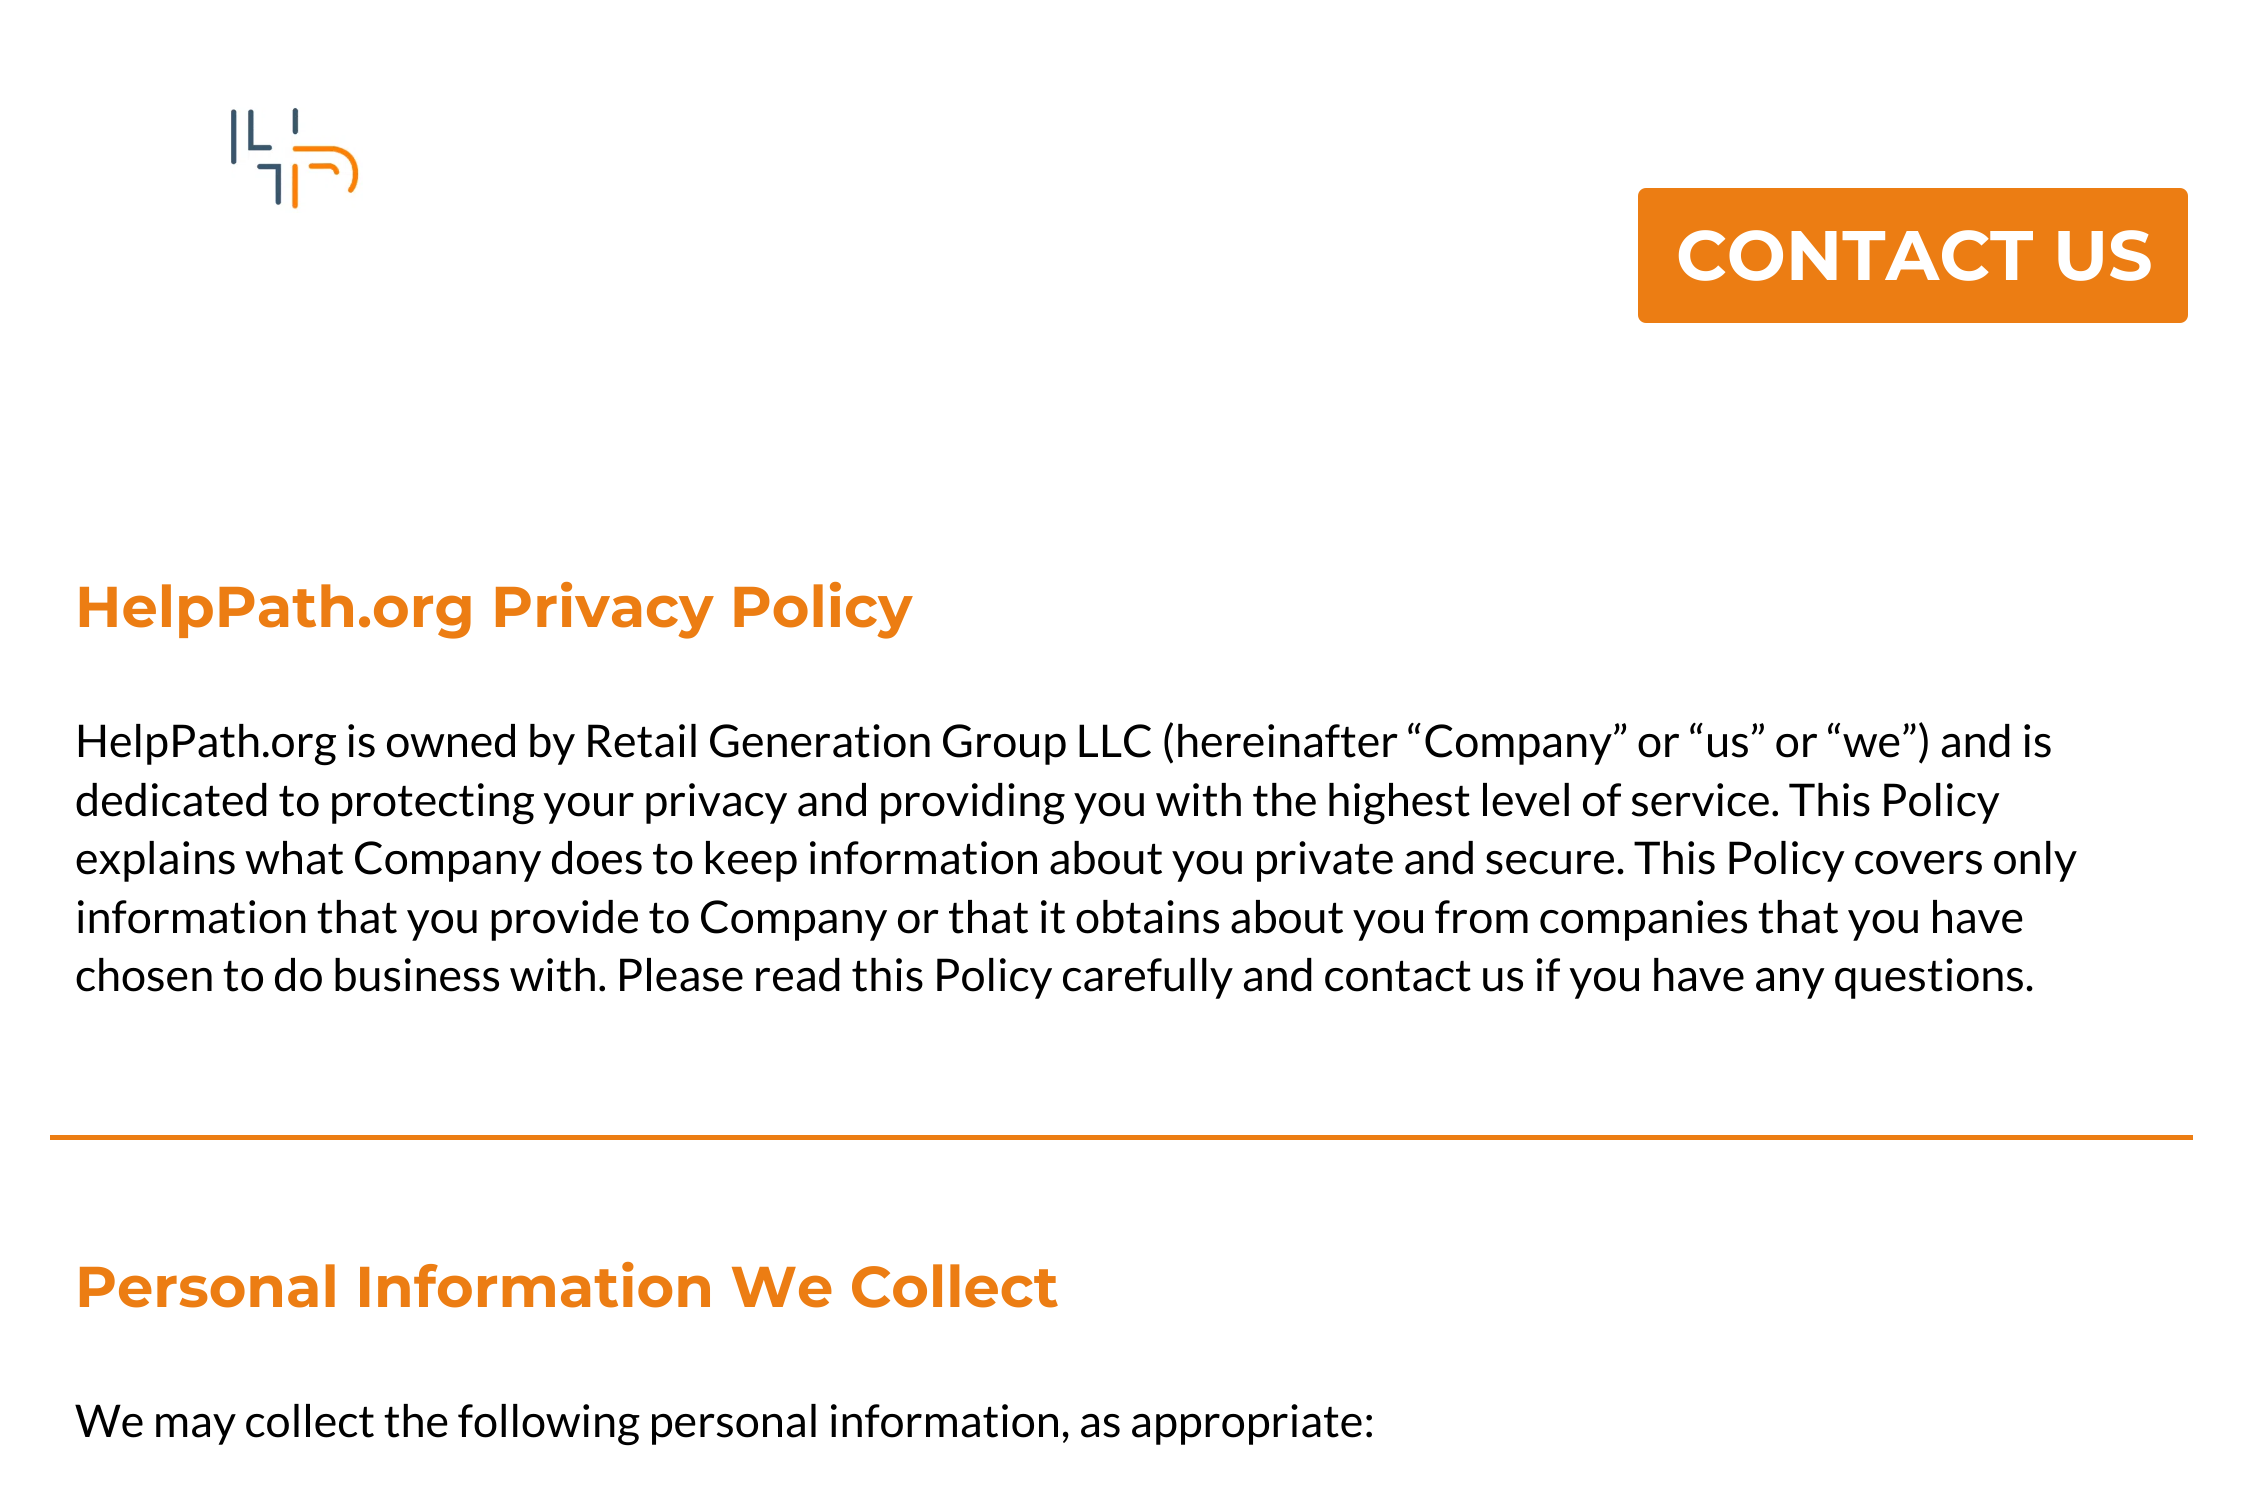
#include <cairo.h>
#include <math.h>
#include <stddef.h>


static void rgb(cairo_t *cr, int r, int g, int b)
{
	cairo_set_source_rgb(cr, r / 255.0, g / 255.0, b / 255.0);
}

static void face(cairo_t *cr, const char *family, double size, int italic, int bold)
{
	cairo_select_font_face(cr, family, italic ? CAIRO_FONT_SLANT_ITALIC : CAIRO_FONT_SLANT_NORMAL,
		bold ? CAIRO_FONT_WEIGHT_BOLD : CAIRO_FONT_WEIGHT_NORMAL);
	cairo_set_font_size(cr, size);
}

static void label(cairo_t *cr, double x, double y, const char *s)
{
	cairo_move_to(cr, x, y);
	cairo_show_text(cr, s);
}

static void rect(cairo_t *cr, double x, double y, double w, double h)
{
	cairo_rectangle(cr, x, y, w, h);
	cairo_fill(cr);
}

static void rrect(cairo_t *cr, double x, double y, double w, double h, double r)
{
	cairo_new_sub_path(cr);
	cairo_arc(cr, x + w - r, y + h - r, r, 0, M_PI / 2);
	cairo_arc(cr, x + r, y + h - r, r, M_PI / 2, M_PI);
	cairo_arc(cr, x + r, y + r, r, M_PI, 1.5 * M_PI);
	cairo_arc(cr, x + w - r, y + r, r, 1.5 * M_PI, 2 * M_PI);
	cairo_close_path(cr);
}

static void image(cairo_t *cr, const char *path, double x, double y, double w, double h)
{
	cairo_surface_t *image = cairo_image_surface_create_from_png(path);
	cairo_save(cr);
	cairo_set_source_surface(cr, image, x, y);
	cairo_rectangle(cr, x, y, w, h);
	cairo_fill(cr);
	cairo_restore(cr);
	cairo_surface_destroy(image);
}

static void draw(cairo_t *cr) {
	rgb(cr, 255, 255, 255);
	cairo_paint(cr);
	image(cr, "image0.png", 230, 107, 133, 106);
	rgb(cr, 236, 125, 19);
	rrect(cr, 1635.5, 185.5, 555, 140, 10.5);
	cairo_fill_preserve(cr);
	rgb(cr, 255, 255, 255);
	cairo_set_line_width(cr, 5);
	cairo_stroke(cr);
	face(cr, "Montserrat", 70, 0, 1);
	label(cr, 1676, 280, "CONTACT US");
	face(cr, "Montserrat", 57.5, 0, 1);
	rgb(cr, 236, 125, 19);
	label(cr, 75, 627, "HelpPath.org Privacy Policy");
	face(cr, "Lato", 45, 0, 0);
	rgb(cr, 0, 0, 0);
	label(cr, 75, 757, "HelpPath.org is owned by Retail Generation Group LLC (hereinafter “Company” or “us” or “we”) and is");
	label(cr, 75, 816, "dedicated to protecting your privacy and providing you with the highest level of service. This Policy");
	label(cr, 75, 874, "explains what Company does to keep information about you private and secure. This Policy covers only");
	label(cr, 75, 933, "information that you provide to Company or that it obtains about you from companies that you have");
	label(cr, 75, 991, "chosen to do business with. Please read this Policy carefully and contact us if you have any questions.");
	rgb(cr, 236, 125, 19);
	rect(cr, 50, 1135, 2143, 5);
	face(cr, "Montserrat", 57.5, 0, 1);
	label(cr, 75, 1307, "Personal Information We Collect");
	face(cr, "Lato", 45, 0, 0);
	rgb(cr, 0, 0, 0);
	label(cr, 75, 1437, "We may collect the following personal information, as appropriate:");
}

int main(void) {
	cairo_surface_t *surface = cairo_image_surface_create(CAIRO_FORMAT_RGB24, 2242, 1486);
	cairo_t *cr = cairo_create(surface);
	cairo_font_options_t *options = cairo_font_options_create();
	cairo_font_options_set_hint_metrics(options, CAIRO_HINT_METRICS_OFF);
	cairo_font_options_set_hint_style(options, CAIRO_HINT_STYLE_NONE);
	cairo_set_font_options(cr, options);
	cairo_set_miter_limit(cr, 4);
	draw(cr);
	cairo_surface_write_to_png(surface, "render.png");
	cairo_font_options_destroy(options);
	cairo_destroy(cr);
	cairo_surface_destroy(surface);
	return 0;
}
